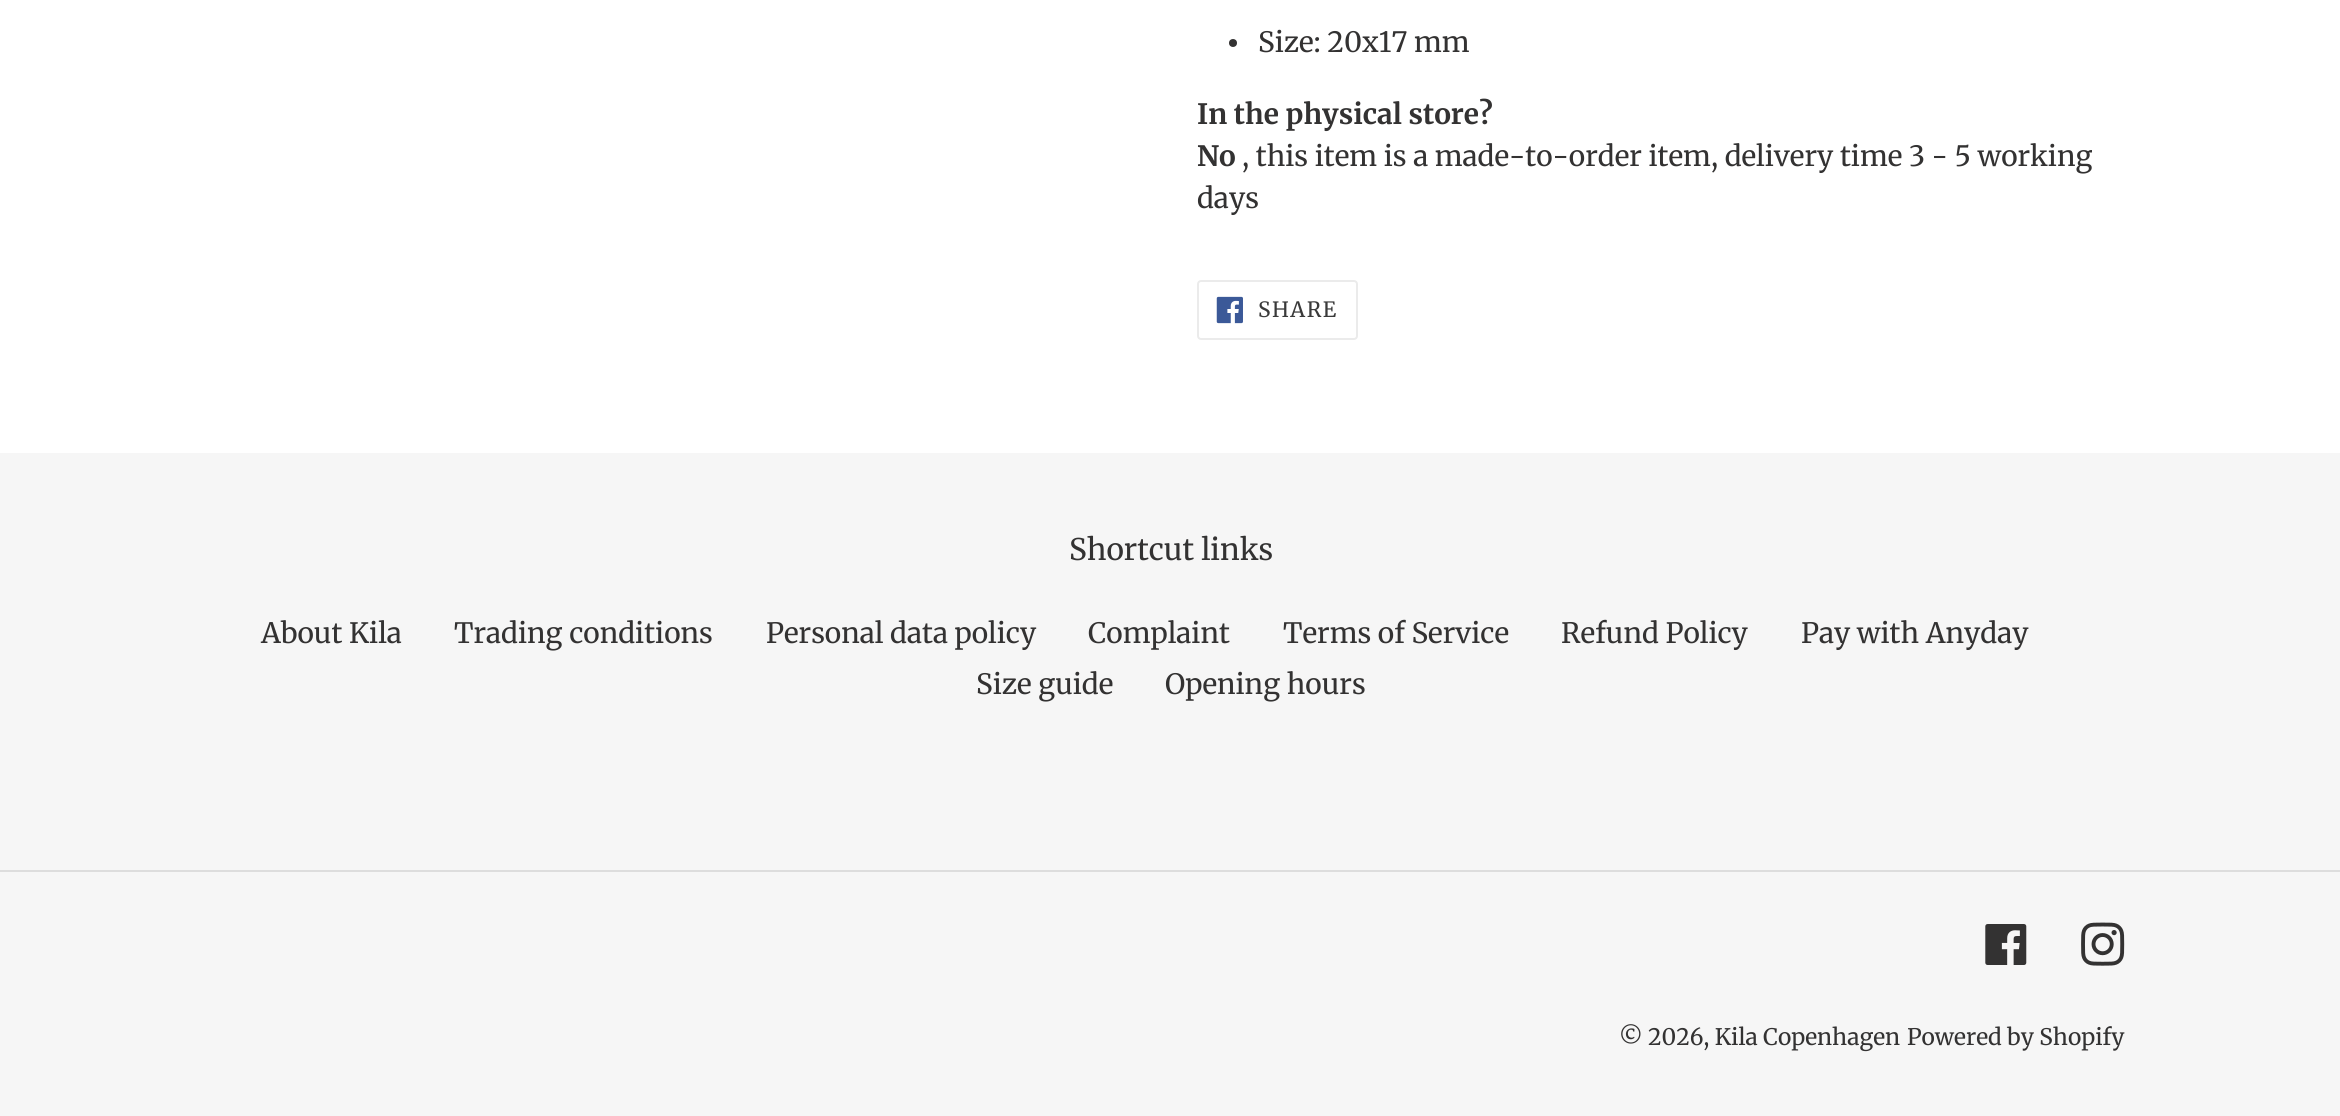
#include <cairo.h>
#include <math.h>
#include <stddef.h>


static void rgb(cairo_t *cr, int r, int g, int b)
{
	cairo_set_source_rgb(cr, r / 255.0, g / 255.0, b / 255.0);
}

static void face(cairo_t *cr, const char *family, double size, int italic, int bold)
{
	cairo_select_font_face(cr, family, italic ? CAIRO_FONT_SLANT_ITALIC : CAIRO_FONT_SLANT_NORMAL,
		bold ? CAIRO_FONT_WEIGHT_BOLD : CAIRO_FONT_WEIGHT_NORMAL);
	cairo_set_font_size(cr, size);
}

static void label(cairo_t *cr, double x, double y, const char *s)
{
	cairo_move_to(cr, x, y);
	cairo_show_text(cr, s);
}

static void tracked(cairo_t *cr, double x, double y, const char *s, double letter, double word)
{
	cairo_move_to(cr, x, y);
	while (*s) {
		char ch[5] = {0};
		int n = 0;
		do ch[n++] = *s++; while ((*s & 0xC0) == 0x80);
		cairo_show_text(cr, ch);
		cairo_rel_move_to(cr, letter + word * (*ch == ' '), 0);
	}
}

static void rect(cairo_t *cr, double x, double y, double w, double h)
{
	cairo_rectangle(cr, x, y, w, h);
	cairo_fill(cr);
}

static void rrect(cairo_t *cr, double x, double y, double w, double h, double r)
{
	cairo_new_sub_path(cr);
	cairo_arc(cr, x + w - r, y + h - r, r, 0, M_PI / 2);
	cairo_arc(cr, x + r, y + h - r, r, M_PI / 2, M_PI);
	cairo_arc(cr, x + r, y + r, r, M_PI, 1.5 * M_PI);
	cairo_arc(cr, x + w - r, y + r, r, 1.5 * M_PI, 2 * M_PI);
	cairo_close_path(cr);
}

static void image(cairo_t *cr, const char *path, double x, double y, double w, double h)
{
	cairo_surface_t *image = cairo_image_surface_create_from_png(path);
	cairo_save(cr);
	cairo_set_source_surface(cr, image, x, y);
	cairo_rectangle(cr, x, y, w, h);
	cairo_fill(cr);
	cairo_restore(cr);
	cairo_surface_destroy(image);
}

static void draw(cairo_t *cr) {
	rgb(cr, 255, 255, 255);
	cairo_paint(cr);
	rgb(cr, 51, 50, 50);
	cairo_arc(cr, 1233, 43, 4, 0, 2 * M_PI);
	cairo_fill(cr);
	face(cr, "Merriweather", 28, 0, 0);
	label(cr, 1258, 52, "Size: 20x17 mm");
	face(cr, "Merriweather", 28, 0, 1);
	label(cr, 1197, 124, "In the physical store?");
	label(cr, 1197, 166, "No");
	face(cr, "Merriweather", 28, 0, 0);
	label(cr, 1242, 166, ", this item is a made-to-order item, delivery time 3 - 5 working");
	label(cr, 1197, 208, "days");
	rrect(cr, 1198, 281, 159, 58, 3);
	rgb(cr, 235, 235, 235);
	cairo_stroke(cr);
	image(cr, "image0.png", 1216, 296, 27, 28);
	face(cr, "Merriweather", 21, 0, 0);
	rgb(cr, 58, 58, 58);
	tracked(cr, 1258, 317, "SHARE", 1.5, 0);
	rgb(cr, 246, 246, 246);
	rect(cr, 0, 453, 2340, 663);
	face(cr, "Merriweather", 29.75, 0, 0);
	rgb(cr, 51, 50, 50);
	label(cr, 1069, 560, "Shortcut links");
	face(cr, "Merriweather", 28, 0, 0);
	label(cr, 261, 643, "About Kila");
	label(cr, 454, 643, "Trading conditions");
	label(cr, 766, 643, "Personal data policy");
	label(cr, 1088, 643, "Complaint");
	label(cr, 1283, 643, "Terms of Service");
	label(cr, 1561, 643, "Refund Policy");
	label(cr, 1801, 643, "Pay with Anyday");
	label(cr, 976, 694, "Size guide");
	label(cr, 1165, 694, "Opening hours");
	rgb(cr, 221, 221, 221);
	rect(cr, 0, 870, 2340, 2);
	image(cr, "image1.png", 1985, 924, 42, 41);
	image(cr, "image2.png", 2081, 922, 44, 44);
	face(cr, "Merriweather", 22.75, 0, 0);
	rgb(cr, 51, 50, 50);
	label(cr, 1619, 1045, "© 2026, Kila Copenhagen");
	label(cr, 1907, 1045, "Powered by Shopify");
}

int main(void) {
	cairo_surface_t *surface = cairo_image_surface_create(CAIRO_FORMAT_RGB24, 2340, 1116);
	cairo_t *cr = cairo_create(surface);
	cairo_font_options_t *options = cairo_font_options_create();
	cairo_font_options_set_hint_metrics(options, CAIRO_HINT_METRICS_OFF);
	cairo_font_options_set_hint_style(options, CAIRO_HINT_STYLE_NONE);
	cairo_set_font_options(cr, options);
	cairo_set_miter_limit(cr, 4);
	draw(cr);
	cairo_surface_write_to_png(surface, "render.png");
	cairo_font_options_destroy(options);
	cairo_destroy(cr);
	cairo_surface_destroy(surface);
	return 0;
}
